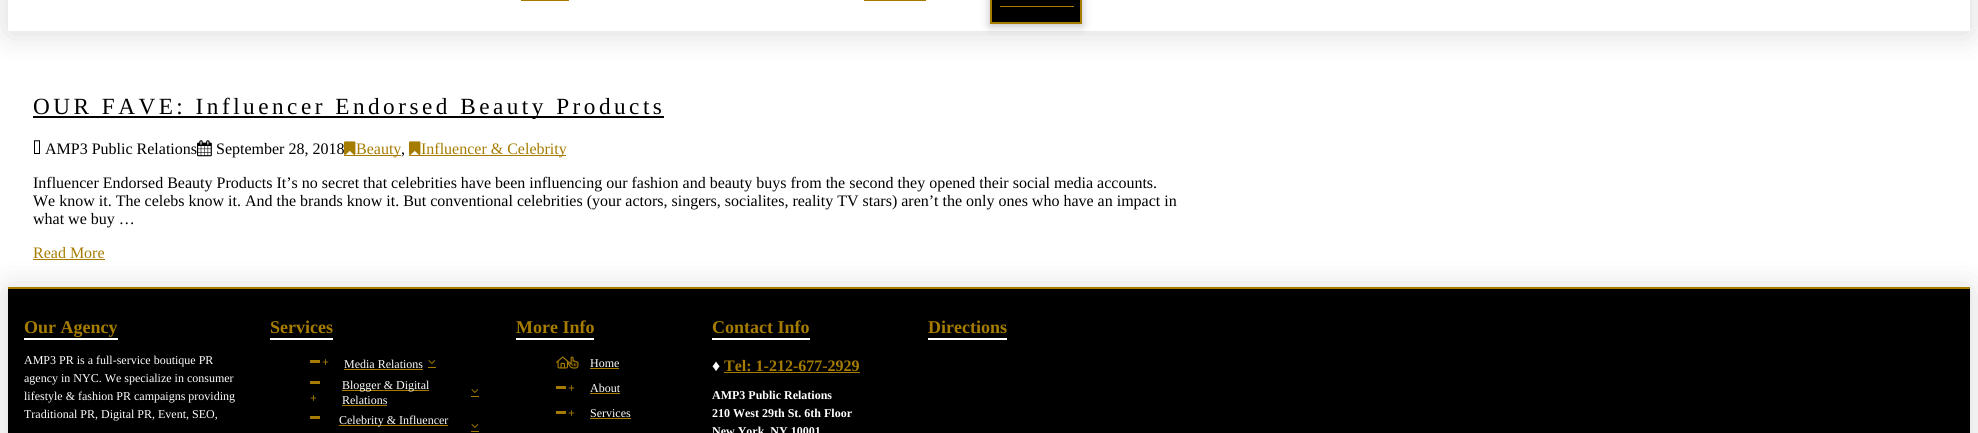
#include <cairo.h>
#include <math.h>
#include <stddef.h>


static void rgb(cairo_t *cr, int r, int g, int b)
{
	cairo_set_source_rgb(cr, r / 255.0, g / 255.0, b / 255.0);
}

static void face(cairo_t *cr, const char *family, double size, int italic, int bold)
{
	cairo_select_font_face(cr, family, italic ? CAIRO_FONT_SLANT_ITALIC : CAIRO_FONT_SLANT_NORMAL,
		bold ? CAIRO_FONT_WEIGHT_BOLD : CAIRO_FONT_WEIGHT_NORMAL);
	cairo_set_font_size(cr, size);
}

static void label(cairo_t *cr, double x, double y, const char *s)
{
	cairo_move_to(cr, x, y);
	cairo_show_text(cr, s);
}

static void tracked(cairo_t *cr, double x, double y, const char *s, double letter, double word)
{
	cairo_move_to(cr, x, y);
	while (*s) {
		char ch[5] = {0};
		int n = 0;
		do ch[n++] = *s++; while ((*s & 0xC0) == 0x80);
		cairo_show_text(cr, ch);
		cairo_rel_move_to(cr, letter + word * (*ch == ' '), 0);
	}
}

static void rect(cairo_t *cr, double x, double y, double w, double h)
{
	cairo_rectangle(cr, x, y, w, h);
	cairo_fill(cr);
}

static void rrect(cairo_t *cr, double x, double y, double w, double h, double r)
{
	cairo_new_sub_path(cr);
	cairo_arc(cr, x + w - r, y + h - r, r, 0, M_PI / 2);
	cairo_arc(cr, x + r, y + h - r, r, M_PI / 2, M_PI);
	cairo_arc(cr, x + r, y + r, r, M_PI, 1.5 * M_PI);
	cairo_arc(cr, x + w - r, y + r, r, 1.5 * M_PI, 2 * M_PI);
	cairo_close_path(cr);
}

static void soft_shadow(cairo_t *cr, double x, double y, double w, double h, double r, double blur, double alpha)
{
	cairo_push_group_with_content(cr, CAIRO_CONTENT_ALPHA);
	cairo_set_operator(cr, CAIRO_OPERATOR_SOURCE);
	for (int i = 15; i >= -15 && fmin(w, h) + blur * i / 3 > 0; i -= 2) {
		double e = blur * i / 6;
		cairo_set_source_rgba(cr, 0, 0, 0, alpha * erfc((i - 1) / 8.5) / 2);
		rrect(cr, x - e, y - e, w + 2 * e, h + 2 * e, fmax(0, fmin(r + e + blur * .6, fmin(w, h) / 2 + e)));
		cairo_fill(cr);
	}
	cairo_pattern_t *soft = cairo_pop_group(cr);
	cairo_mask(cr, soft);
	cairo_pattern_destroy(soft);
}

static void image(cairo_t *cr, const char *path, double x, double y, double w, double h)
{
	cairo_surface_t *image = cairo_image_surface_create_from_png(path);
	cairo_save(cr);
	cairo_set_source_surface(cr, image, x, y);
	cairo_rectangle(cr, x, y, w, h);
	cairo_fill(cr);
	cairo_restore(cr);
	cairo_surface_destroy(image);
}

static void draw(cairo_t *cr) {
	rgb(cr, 255, 255, 255);
	cairo_paint(cr);
	cairo_save(cr);
	cairo_set_fill_rule(cr, CAIRO_FILL_RULE_EVEN_ODD);
	cairo_new_path(cr);
	cairo_move_to(cr, 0, 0);
	cairo_line_to(cr, 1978, 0);
	cairo_line_to(cr, 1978, 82);
	cairo_line_to(cr, 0, 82);
	cairo_close_path(cr);
	cairo_move_to(cr, 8, -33);
	cairo_line_to(cr, 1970, -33);
	cairo_line_to(cr, 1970, 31);
	cairo_line_to(cr, 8, 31);
	cairo_close_path(cr);
	cairo_clip(cr);
	rgb(cr, 0, 0, 0);
	soft_shadow(cr, 8, -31, 1962, 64, 0, 16, 0.15);
	cairo_restore(cr);
	rgb(cr, 166, 124, 0);
	rect(cr, 521, 0, 48, 1);
	rect(cr, 864, 0, 62, 1);
	rgb(cr, 0, 0, 0);
	soft_shadow(cr, 990, -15, 92, 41, 0, 5, 0.25);
	rgb(cr, 0, 0, 0);
	cairo_rectangle(cr, 991, -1, 90, 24);
	cairo_fill_preserve(cr);
	rgb(cr, 166, 124, 0);
	cairo_stroke(cr);
	rect(cr, 1000, 6, 74, 1);
	rgb(cr, 0, 0, 0);
	rect(cr, 33, 116, 631, 2);
	face(cr, "Liberation Serif", 23.2, 0, 0);
	tracked(cr, 33, 114, "OUR FAVE: Influencer Endorsed Beauty Products", 3.5, 0);
	image(cr, "image0.png", 34, 140, 6, 14);
	face(cr, "Liberation Serif", 16, 0, 0);
	label(cr, 45, 154, "AMP3 Public Relations");
	image(cr, "image1.png", 197, 140, 15, 17);
	label(cr, 216, 154, "September 28, 2018");
	rgb(cr, 166, 124, 0);
	rect(cr, 344, 155, 57, 1);
	image(cr, "image2.png", 344, 141, 12, 14);
	label(cr, 356, 154, "Beauty");
	rgb(cr, 0, 0, 0);
	label(cr, 401, 154, ",");
	rgb(cr, 166, 124, 0);
	rect(cr, 409, 155, 157, 1);
	image(cr, "image2.png", 409, 141, 12, 14);
	label(cr, 421, 154, "Influencer & Celebrity");
	rgb(cr, 0, 0, 0);
	label(cr, 33, 188, "Influencer Endorsed Beauty Products It’s no secret that celebrities have been influencing our fashion and beauty buys from the second they opened their social media accounts.");
	label(cr, 33, 206, "We know it. The celebs know it. And the brands know it. But conventional celebrities (your actors, singers, socialites, reality TV stars) aren’t the only ones who have an impact in");
	label(cr, 33, 224, "what we buy …");
	rgb(cr, 0, 0, 0);
	soft_shadow(cr, 8, 289, 1962, 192, 0, 16, 0.15);
	rgb(cr, 166, 124, 0);
	label(cr, 33, 258, "Read More");
	rect(cr, 33, 259, 72, 1);
	rgb(cr, 0, 0, 0);
	rect(cr, 8, 289, 1962, 144);
	rgb(cr, 166, 124, 0);
	rect(cr, 8, 287, 1962, 2);
	rgb(cr, 255, 255, 255);
	rect(cr, 24, 338, 94, 2);
	face(cr, "Liberation Serif", 18, 0, 1);
	rgb(cr, 166, 124, 0);
	label(cr, 24, 333, "Our Agency");
	face(cr, "Liberation Serif", 12, 0, 0);
	rgb(cr, 255, 255, 255);
	label(cr, 24, 364, "AMP3 PR is a full-service boutique PR");
	label(cr, 24, 382, "agency in NYC. We specialize in consumer");
	label(cr, 24, 400, "lifestyle & fashion PR campaigns providing");
	label(cr, 24, 418, "Traditional PR, Digital PR, Event, SEO,");
	rect(cr, 270, 338, 63, 2);
	face(cr, "Liberation Serif", 18, 0, 1);
	rgb(cr, 166, 124, 0);
	label(cr, 270, 333, "Services");
	rect(cr, 310, 360, 10, 3);
	face(cr, "Liberation Serif", 12, 0, 1);
	label(cr, 322, 366, "+");
	face(cr, "Liberation Serif", 12, 0, 0);
	rgb(cr, 255, 255, 255);
	label(cr, 344, 368, "Media Relations");
	rgb(cr, 166, 124, 0);
	rect(cr, 344, 369, 79, 1);
	rect(cr, 428, 367, 8, 1);
	image(cr, "image3.png", 428, 360, 8, 4);
	rect(cr, 342, 390, 87, 1);
	rgb(cr, 255, 255, 255);
	label(cr, 342, 389, "Blogger & Digital");
	label(cr, 342, 404, "Relations");
	rgb(cr, 166, 124, 0);
	rect(cr, 342, 405, 45, 1);
	rect(cr, 471, 396, 8, 1);
	image(cr, "image3.png", 471, 389, 8, 4);
	rect(cr, 310, 381, 10, 3);
	face(cr, "Liberation Serif", 12, 0, 1);
	label(cr, 310, 402, "+");
	rect(cr, 310, 416, 10, 3);
	rect(cr, 339, 425, 109, 1);
	face(cr, "Liberation Serif", 12, 0, 0);
	rgb(cr, 255, 255, 255);
	label(cr, 339, 424, "Celebrity & Influencer");
	rgb(cr, 166, 124, 0);
	rect(cr, 471, 431, 8, 1);
	image(cr, "image3.png", 471, 424, 8, 4);
	rgb(cr, 255, 255, 255);
	rect(cr, 516, 338, 78, 2);
	face(cr, "Liberation Serif", 18, 0, 1);
	rgb(cr, 166, 124, 0);
	label(cr, 516, 333, "More Info");
	image(cr, "image4.png", 556, 356, 14, 13);
	image(cr, "image5.png", 568, 356, 11, 13);
	face(cr, "Liberation Serif", 12, 0, 0);
	rgb(cr, 255, 255, 255);
	label(cr, 590, 367, "Home");
	rgb(cr, 166, 124, 0);
	rect(cr, 590, 368, 29, 1);
	rect(cr, 556, 386, 10, 3);
	face(cr, "Liberation Serif", 12, 0, 1);
	label(cr, 568, 392, "+");
	face(cr, "Liberation Serif", 12, 0, 0);
	rgb(cr, 255, 255, 255);
	label(cr, 590, 392, "About");
	rgb(cr, 166, 124, 0);
	rect(cr, 590, 393, 30, 1);
	rect(cr, 556, 411, 10, 3);
	face(cr, "Liberation Serif", 12, 0, 1);
	label(cr, 568, 417, "+");
	face(cr, "Liberation Serif", 12, 0, 0);
	rgb(cr, 255, 255, 255);
	label(cr, 590, 417, "Services");
	rgb(cr, 166, 124, 0);
	rect(cr, 590, 418, 41, 1);
	rgb(cr, 255, 255, 255);
	rect(cr, 712, 338, 98, 2);
	face(cr, "Liberation Serif", 18, 0, 1);
	rgb(cr, 166, 124, 0);
	label(cr, 712, 333, "Contact Info");
	face(cr, "Liberation Serif", 16, 0, 1);
	rgb(cr, 255, 255, 255);
	label(cr, 712, 371, "♦");
	rgb(cr, 166, 124, 0);
	label(cr, 724, 371, "Tel: 1-212-677-2929");
	rect(cr, 724, 372, 136, 1);
	face(cr, "Liberation Serif", 12, 0, 1);
	rgb(cr, 255, 255, 255);
	label(cr, 712, 399, "AMP3 Public Relations");
	label(cr, 712, 417, "210 West 29th St. 6th Floor");
	label(cr, 712, 435, "New York, NY 10001");
	rect(cr, 928, 338, 79, 2);
	face(cr, "Liberation Serif", 18, 0, 1);
	rgb(cr, 166, 124, 0);
	label(cr, 928, 333, "Directions");
}

int main(void) {
	cairo_surface_t *surface = cairo_image_surface_create(CAIRO_FORMAT_RGB24, 1978, 433);
	cairo_t *cr = cairo_create(surface);
	cairo_font_options_t *options = cairo_font_options_create();
	cairo_font_options_set_hint_metrics(options, CAIRO_HINT_METRICS_OFF);
	cairo_font_options_set_hint_style(options, CAIRO_HINT_STYLE_NONE);
	cairo_set_font_options(cr, options);
	cairo_set_miter_limit(cr, 4);
	draw(cr);
	cairo_surface_write_to_png(surface, "render.png");
	cairo_font_options_destroy(options);
	cairo_destroy(cr);
	cairo_surface_destroy(surface);
	return 0;
}
